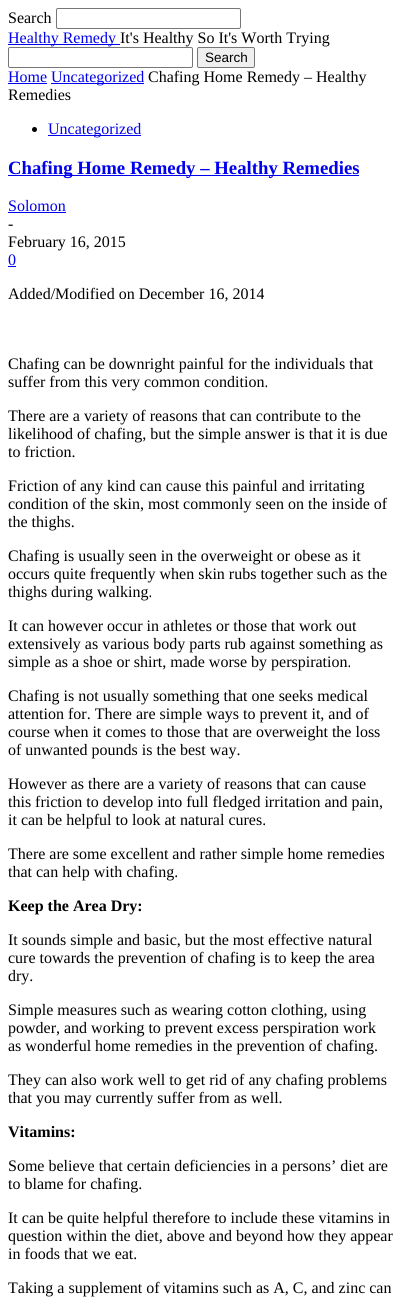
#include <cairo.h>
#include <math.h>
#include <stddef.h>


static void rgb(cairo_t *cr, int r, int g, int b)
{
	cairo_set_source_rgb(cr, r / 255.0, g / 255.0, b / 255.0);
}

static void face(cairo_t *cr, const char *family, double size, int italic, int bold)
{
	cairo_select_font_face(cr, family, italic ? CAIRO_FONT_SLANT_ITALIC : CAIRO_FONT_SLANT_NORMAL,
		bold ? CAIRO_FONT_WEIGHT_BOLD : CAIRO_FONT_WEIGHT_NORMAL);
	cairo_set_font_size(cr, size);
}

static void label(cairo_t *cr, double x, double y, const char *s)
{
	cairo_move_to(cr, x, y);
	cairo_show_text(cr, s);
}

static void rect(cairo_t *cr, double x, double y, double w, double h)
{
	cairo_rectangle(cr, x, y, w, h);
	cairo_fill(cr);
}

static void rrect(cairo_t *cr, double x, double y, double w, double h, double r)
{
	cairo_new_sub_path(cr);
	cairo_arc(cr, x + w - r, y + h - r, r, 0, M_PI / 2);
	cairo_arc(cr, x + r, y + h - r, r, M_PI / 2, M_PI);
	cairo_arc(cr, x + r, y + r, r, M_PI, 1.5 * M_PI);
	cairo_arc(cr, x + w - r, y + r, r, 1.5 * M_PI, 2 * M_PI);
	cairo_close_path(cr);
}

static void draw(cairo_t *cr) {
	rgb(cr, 255, 255, 255);
	cairo_paint(cr);
	face(cr, "Liberation Serif", 16, 0, 0);
	rgb(cr, 0, 0, 0);
	label(cr, 8, 23, "Search");
	rrect(cr, 56.5, 8.5, 184, 20, 1.5);
	rgb(cr, 118, 118, 118);
	cairo_set_line_width(cr, 1);
	cairo_stroke(cr);
	rgb(cr, 0, 0, 238);
	rect(cr, 8, 44, 112, 1);
	label(cr, 8, 43, "Healthy Remedy");
	rgb(cr, 0, 0, 0);
	label(cr, 120, 43, "It's Healthy So It's Worth Trying");
	rrect(cr, 8.5, 47.5, 184, 20, 1.5);
	rgb(cr, 118, 118, 118);
	cairo_stroke(cr);
	rgb(cr, 239, 239, 239);
	rrect(cr, 197.5, 47.5, 57, 20, 1.5);
	cairo_fill_preserve(cr);
	rgb(cr, 118, 118, 118);
	cairo_stroke(cr);
	face(cr, "Liberation Sans", 13.5, 0, 0);
	rgb(cr, 0, 0, 0);
	label(cr, 205, 62, "Search");
	face(cr, "Liberation Serif", 16, 0, 0);
	rgb(cr, 0, 0, 238);
	label(cr, 8, 82, "Home");
	rect(cr, 8, 83, 39, 1);
	rect(cr, 51, 83, 93, 1);
	label(cr, 51, 82, "Uncategorized");
	rgb(cr, 0, 0, 0);
	label(cr, 148, 82, "Chafing Home Remedy – Healthy");
	label(cr, 8, 100, "Remedies");
	cairo_new_path(cr);
	cairo_arc(cr, 34.5, 129.5, 2.5, 0, 2 * M_PI);
	cairo_fill(cr);
	rgb(cr, 0, 0, 238);
	rect(cr, 48, 135, 93, 1);
	label(cr, 48, 134, "Uncategorized");
	rect(cr, 8, 175, 351, 1);
	face(cr, "Liberation Serif", 18.75, 0, 1);
	label(cr, 8, 174, "Chafing Home Remedy – Healthy Remedies");
	face(cr, "Liberation Serif", 16, 0, 0);
	label(cr, 8, 211, "Solomon");
	rect(cr, 8, 212, 58, 1);
	rgb(cr, 0, 0, 0);
	label(cr, 8, 229, "-");
	label(cr, 8, 247, "February 16, 2015");
	rgb(cr, 0, 0, 238);
	label(cr, 8, 265, "0");
	rect(cr, 8, 266, 8, 1);
	rgb(cr, 0, 0, 0);
	label(cr, 8, 299, "Added/Modified on December 16, 2014");
	label(cr, 8, 369, "Chafing can be downright painful for the individuals that");
	label(cr, 8, 387, "suffer from this very common condition.");
	label(cr, 8, 421, "There are a variety of reasons that can contribute to the");
	label(cr, 8, 439, "likelihood of chafing, but the simple answer is that it is due");
	label(cr, 8, 457, "to friction.");
	label(cr, 8, 491, "Friction of any kind can cause this painful and irritating");
	label(cr, 8, 509, "condition of the skin, most commonly seen on the inside of");
	label(cr, 8, 527, "the thighs.");
	label(cr, 8, 561, "Chafing is usually seen in the overweight or obese as it");
	label(cr, 8, 579, "occurs quite frequently when skin rubs together such as the");
	label(cr, 8, 597, "thighs during walking.");
	label(cr, 8, 631, "It can however occur in athletes or those that work out");
	label(cr, 8, 649, "extensively as various body parts rub against something as");
	label(cr, 8, 667, "simple as a shoe or shirt, made worse by perspiration.");
	label(cr, 8, 701, "Chafing is not usually something that one seeks medical");
	label(cr, 8, 719, "attention for. There are simple ways to prevent it, and of");
	label(cr, 8, 737, "course when it comes to those that are overweight the loss");
	label(cr, 8, 755, "of unwanted pounds is the best way.");
	label(cr, 8, 789, "However as there are a variety of reasons that can cause");
	label(cr, 8, 807, "this friction to develop into full fledged irritation and pain,");
	label(cr, 8, 825, "it can be helpful to look at natural cures.");
	label(cr, 8, 859, "There are some excellent and rather simple home remedies");
	label(cr, 8, 877, "that can help with chafing.");
	face(cr, "Liberation Serif", 16, 0, 1);
	label(cr, 8, 911, "Keep the Area Dry:");
	face(cr, "Liberation Serif", 16, 0, 0);
	label(cr, 8, 945, "It sounds simple and basic, but the most effective natural");
	label(cr, 8, 963, "cure towards the prevention of chafing is to keep the area");
	label(cr, 8, 981, "dry.");
	label(cr, 8, 1015, "Simple measures such as wearing cotton clothing, using");
	label(cr, 8, 1033, "powder, and working to prevent excess perspiration work");
	label(cr, 8, 1051, "as wonderful home remedies in the prevention of chafing.");
	label(cr, 8, 1085, "They can also work well to get rid of any chafing problems");
	label(cr, 8, 1103, "that you may currently suffer from as well.");
	face(cr, "Liberation Serif", 16, 0, 1);
	label(cr, 8, 1137, "Vitamins:");
	face(cr, "Liberation Serif", 16, 0, 0);
	label(cr, 8, 1171, "Some believe that certain deficiencies in a persons’ diet are");
	label(cr, 8, 1189, "to blame for chafing.");
	label(cr, 8, 1223, "It can be quite helpful therefore to include these vitamins in");
	label(cr, 8, 1241, "question within the diet, above and beyond how they appear");
	label(cr, 8, 1259, "in foods that we eat.");
	label(cr, 8, 1293, "Taking a supplement of vitamins such as A, C, and zinc can");
}

int main(void) {
	cairo_surface_t *surface = cairo_image_surface_create(CAIRO_FORMAT_RGB24, 401, 1307);
	cairo_t *cr = cairo_create(surface);
	cairo_font_options_t *options = cairo_font_options_create();
	cairo_font_options_set_hint_metrics(options, CAIRO_HINT_METRICS_OFF);
	cairo_font_options_set_hint_style(options, CAIRO_HINT_STYLE_NONE);
	cairo_set_font_options(cr, options);
	cairo_set_miter_limit(cr, 4);
	draw(cr);
	cairo_surface_write_to_png(surface, "render.png");
	cairo_font_options_destroy(options);
	cairo_destroy(cr);
	cairo_surface_destroy(surface);
	return 0;
}
